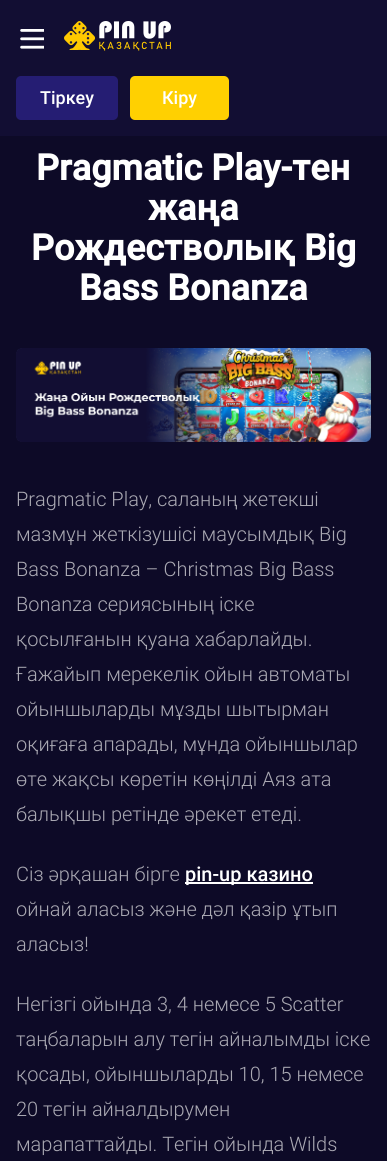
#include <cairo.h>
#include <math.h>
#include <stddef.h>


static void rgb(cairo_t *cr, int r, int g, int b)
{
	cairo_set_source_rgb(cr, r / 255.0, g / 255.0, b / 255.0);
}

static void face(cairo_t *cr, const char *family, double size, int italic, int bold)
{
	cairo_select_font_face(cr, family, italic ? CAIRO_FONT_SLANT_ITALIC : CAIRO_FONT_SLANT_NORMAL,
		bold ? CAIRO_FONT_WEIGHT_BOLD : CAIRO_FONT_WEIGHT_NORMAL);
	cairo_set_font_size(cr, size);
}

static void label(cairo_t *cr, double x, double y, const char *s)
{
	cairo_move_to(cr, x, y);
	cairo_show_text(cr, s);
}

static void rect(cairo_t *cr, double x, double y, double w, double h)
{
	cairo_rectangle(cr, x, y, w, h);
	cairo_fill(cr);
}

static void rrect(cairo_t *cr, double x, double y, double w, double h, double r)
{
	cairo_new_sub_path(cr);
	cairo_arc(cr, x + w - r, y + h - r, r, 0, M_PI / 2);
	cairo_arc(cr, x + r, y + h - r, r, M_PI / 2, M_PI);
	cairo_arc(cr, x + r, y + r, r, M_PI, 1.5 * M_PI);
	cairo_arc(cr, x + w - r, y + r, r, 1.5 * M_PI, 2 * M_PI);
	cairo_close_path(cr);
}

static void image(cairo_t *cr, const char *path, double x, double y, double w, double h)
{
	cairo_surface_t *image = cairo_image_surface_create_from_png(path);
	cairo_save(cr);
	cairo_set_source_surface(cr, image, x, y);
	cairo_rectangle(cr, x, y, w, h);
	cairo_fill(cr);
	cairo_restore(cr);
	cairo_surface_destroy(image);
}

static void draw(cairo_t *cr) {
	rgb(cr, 13, 10, 39);
	cairo_paint(cr);
	rgb(cr, 18, 14, 51);
	rect(cr, 0, 0, 387, 136);
	image(cr, "image0.png", 20, 29, 24, 20);
	image(cr, "image1.png", 64, 21, 107, 30);
	rgb(cr, 37, 29, 115);
	rrect(cr, 16, 76, 102, 44, 5);
	cairo_fill(cr);
	face(cr, "Roboto Medium", 18, 0, 0);
	rgb(cr, 255, 255, 255);
	label(cr, 40, 104, "Тіркеу");
	rgb(cr, 255, 208, 1);
	rrect(cr, 130, 76, 99, 44, 5);
	cairo_fill(cr);
	rgb(cr, 255, 255, 255);
	label(cr, 162, 104, "Кіру");
	face(cr, "Roboto", 36, 0, 1);
	label(cr, 36, 180, "Pragmatic Play-тен");
	label(cr, 148, 220, "жаңа");
	label(cr, 31, 260, "Рождестволық Big");
	label(cr, 79, 300, "Bass Bonanza");
	image(cr, "image2.png", 16, 348, 355, 94);
	face(cr, "Roboto Light", 20, 0, 0);
	rgb(cr, 170, 169, 179);
	label(cr, 16, 506, "Pragmatic Play, саланың жетекші");
	label(cr, 16, 541, "мазмұн жеткізушісі маусымдық Big");
	label(cr, 16, 576, "Bass Bonanza – Christmas Big Bass");
	label(cr, 16, 611, "Bonanza сериясының іске");
	label(cr, 16, 646, "қосылғанын қуана хабарлайды.");
	label(cr, 16, 681, "Ғажайып мерекелік ойын автоматы");
	label(cr, 16, 716, "ойыншыларды мұзды шытырман");
	label(cr, 16, 751, "оқиғаға апарады, мұнда ойыншылар");
	label(cr, 16, 786, "өте жақсы көретін көңілді Аяз ата");
	label(cr, 16, 821, "балықшы ретінде әрекет етеді.");
	label(cr, 16, 881, "Сіз әрқашан бірге");
	rgb(cr, 255, 255, 255);
	rect(cr, 185, 882, 128, 2);
	face(cr, "Roboto Medium", 20, 0, 0);
	label(cr, 185, 881, "pin-up казино");
	face(cr, "Roboto Light", 20, 0, 0);
	rgb(cr, 170, 169, 179);
	label(cr, 16, 916, "ойнай аласыз және дәл қазір ұтып");
	label(cr, 16, 951, "аласыз!");
	label(cr, 16, 1011, "Негізгі ойында 3, 4 немесе 5 Scatter");
	label(cr, 16, 1046, "таңбаларын алу тегін айналымды іске");
	label(cr, 16, 1081, "қосады, ойыншыларды 10, 15 немесе");
	label(cr, 16, 1116, "20 тегін айналдырумен");
	label(cr, 16, 1151, "марапаттайды. Тегін ойында Wilds");
}

int main(void) {
	cairo_surface_t *surface = cairo_image_surface_create(CAIRO_FORMAT_RGB24, 387, 1161);
	cairo_t *cr = cairo_create(surface);
	cairo_font_options_t *options = cairo_font_options_create();
	cairo_font_options_set_hint_metrics(options, CAIRO_HINT_METRICS_OFF);
	cairo_font_options_set_hint_style(options, CAIRO_HINT_STYLE_NONE);
	cairo_set_font_options(cr, options);
	cairo_set_miter_limit(cr, 4);
	draw(cr);
	cairo_surface_write_to_png(surface, "render.png");
	cairo_font_options_destroy(options);
	cairo_destroy(cr);
	cairo_surface_destroy(surface);
	return 0;
}
